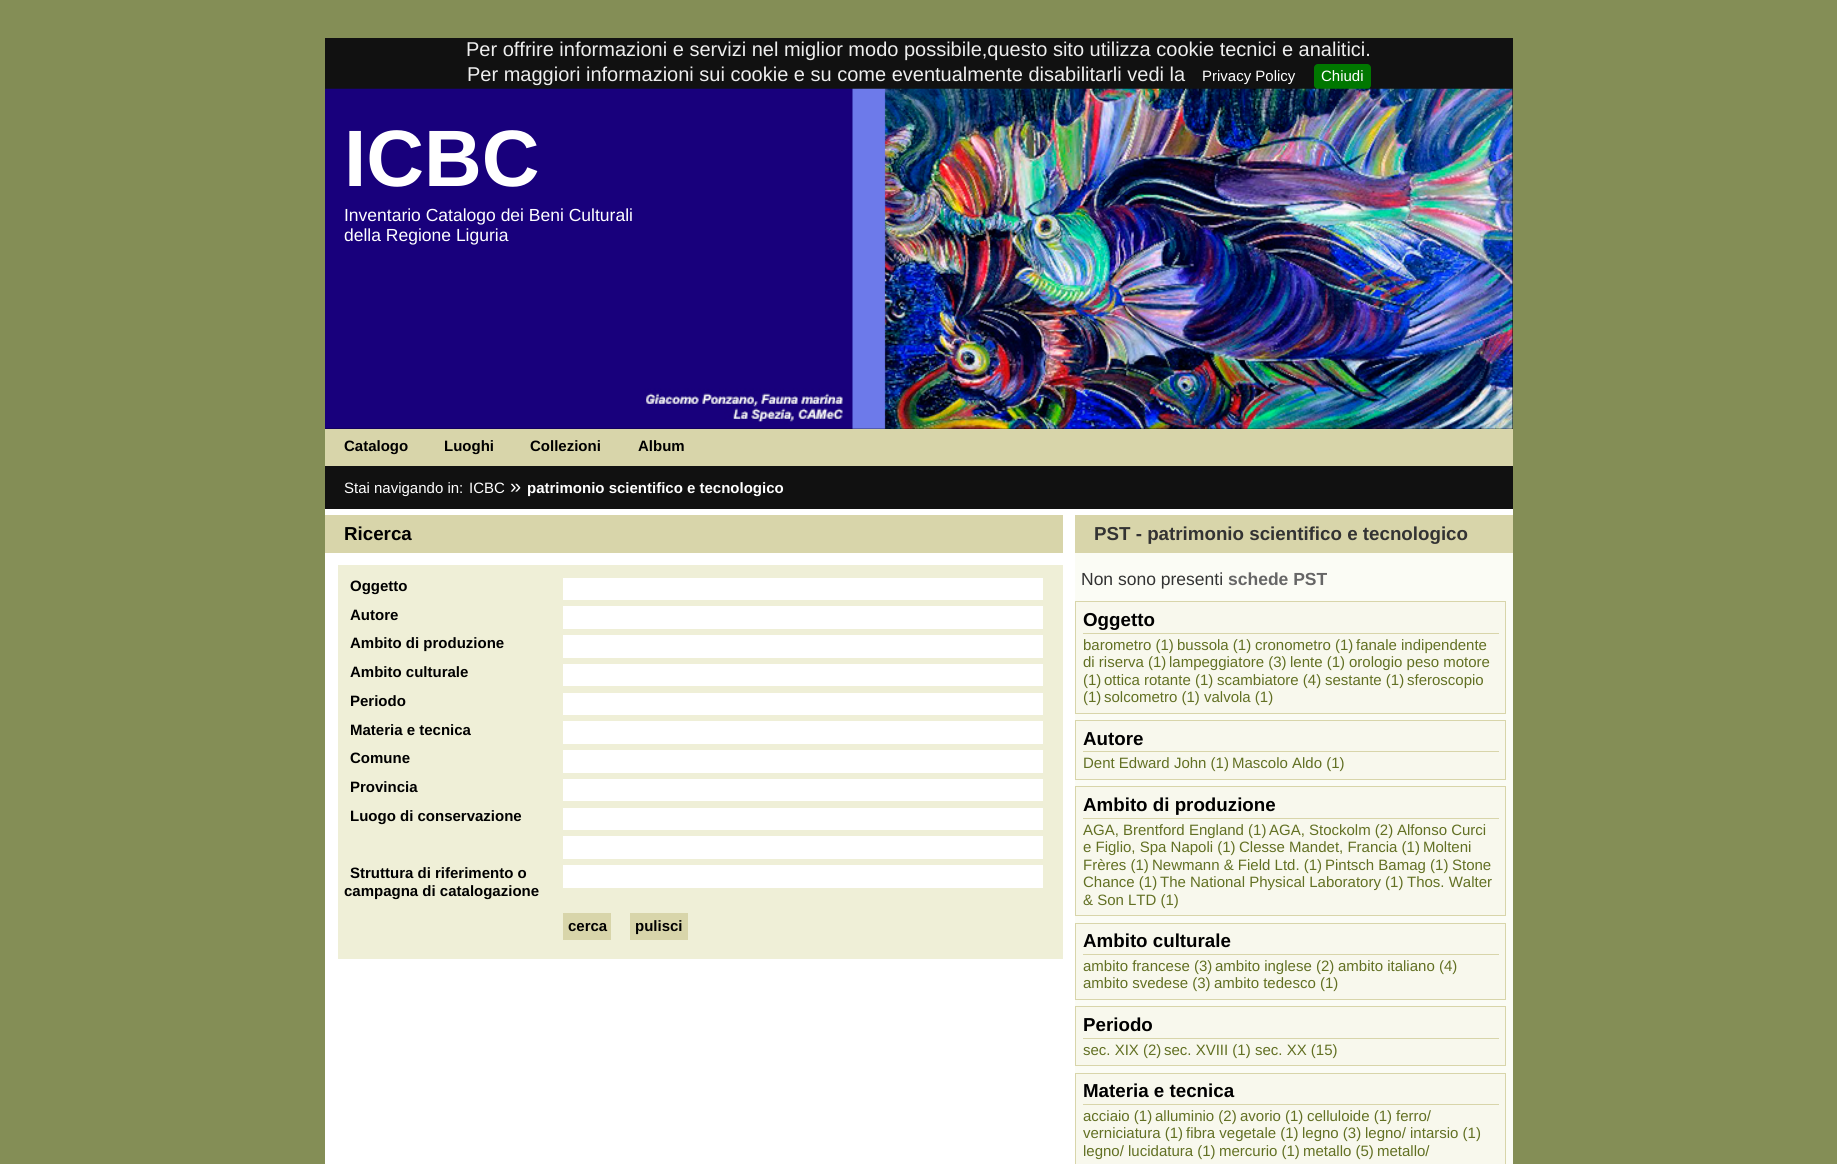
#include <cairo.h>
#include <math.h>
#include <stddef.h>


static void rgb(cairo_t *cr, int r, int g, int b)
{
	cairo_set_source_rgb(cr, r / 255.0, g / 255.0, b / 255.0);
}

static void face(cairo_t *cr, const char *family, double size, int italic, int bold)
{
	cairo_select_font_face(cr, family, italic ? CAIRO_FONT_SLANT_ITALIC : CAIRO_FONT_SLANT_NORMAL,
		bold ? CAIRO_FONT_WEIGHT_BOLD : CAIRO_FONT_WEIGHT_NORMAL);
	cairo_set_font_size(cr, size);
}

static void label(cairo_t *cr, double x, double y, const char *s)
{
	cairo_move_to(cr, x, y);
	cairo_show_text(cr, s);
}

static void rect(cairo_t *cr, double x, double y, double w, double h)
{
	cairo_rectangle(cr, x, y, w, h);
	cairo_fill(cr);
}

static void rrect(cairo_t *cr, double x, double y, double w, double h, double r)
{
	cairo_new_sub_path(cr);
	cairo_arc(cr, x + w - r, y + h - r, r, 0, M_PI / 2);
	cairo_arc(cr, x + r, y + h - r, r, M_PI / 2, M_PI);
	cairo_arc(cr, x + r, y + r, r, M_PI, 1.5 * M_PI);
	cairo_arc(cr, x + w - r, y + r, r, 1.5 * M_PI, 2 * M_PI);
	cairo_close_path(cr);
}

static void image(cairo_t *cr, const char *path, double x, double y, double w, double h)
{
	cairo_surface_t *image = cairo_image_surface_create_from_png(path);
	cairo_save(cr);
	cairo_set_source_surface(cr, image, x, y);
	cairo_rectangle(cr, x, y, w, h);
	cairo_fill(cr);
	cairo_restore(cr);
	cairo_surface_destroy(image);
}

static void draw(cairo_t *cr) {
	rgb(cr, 132, 142, 86);
	cairo_paint(cr);
	rgb(cr, 17, 17, 17);
	rect(cr, 325, 38, 1188, 51);
	face(cr, "Liberation Sans", 20, 0, 0);
	rgb(cr, 238, 238, 238);
	label(cr, 466, 56, "Per offrire informazioni e servizi nel miglior modo possibile,questo sito utilizza cookie tecnici e analitici.");
	label(cr, 467, 81, "Per maggiori informazioni sui cookie e su come eventualmente disabilitarli vedi la");
	face(cr, "Liberation Sans", 15, 0, 0);
	rgb(cr, 255, 255, 255);
	label(cr, 1202, 81, "Privacy Policy");
	rgb(cr, 0, 119, 0);
	rrect(cr, 1314, 64, 57, 25, 4);
	cairo_fill(cr);
	rgb(cr, 255, 255, 255);
	label(cr, 1321, 81, "Chiudi");
	rect(cr, 325, 509, 1188, 655);
	rgb(cr, 0, 0, 0);
	rect(cr, 325, 89, 1188, 340);
	image(cr, "image0.png", 325, 88, 1188, 341);
	face(cr, "Liberation Sans", 80, 0, 1);
	rgb(cr, 255, 255, 255);
	label(cr, 344, 186, "ICBC");
	face(cr, "Liberation Sans", 17.5, 0, 0);
	label(cr, 344, 221, "Inventario Catalogo dei Beni Culturali");
	label(cr, 344, 241, "della Regione Liguria");
	rgb(cr, 216, 213, 170);
	rect(cr, 326, 429, 1187, 37);
	rgb(cr, 215, 215, 169);
	rect(cr, 325, 429, 1, 37);
	face(cr, "Liberation Sans", 15, 0, 1);
	rgb(cr, 0, 0, 0);
	label(cr, 344, 451, "Catalogo");
	label(cr, 444, 451, "Luoghi");
	label(cr, 530, 451, "Collezioni");
	label(cr, 638, 451, "Album");
	rgb(cr, 17, 17, 17);
	rect(cr, 325, 466, 1188, 43);
	face(cr, "Liberation Sans", 15, 0, 0);
	rgb(cr, 255, 255, 255);
	label(cr, 344, 493, "Stai navigando in:");
	label(cr, 469, 493, "ICBC");
	face(cr, "Liberation Sans", 20, 0, 0);
	label(cr, 510, 493, "»");
	face(cr, "Liberation Sans", 15, 0, 1);
	label(cr, 527, 493, "patrimonio scientifico e tecnologico");
	rgb(cr, 216, 213, 170);
	rect(cr, 325, 515, 738, 38);
	face(cr, "Liberation Sans", 18.75, 0, 1);
	rgb(cr, 0, 0, 0);
	label(cr, 344, 540, "Ricerca");
	rgb(cr, 239, 239, 215);
	rect(cr, 338, 565, 725, 394);
	face(cr, "Liberation Sans", 15, 0, 1);
	rgb(cr, 0, 0, 0);
	label(cr, 350, 591, "Oggetto");
	rgb(cr, 255, 255, 255);
	rect(cr, 563, 578, 480, 22);
	rgb(cr, 0, 0, 0);
	label(cr, 350, 620, "Autore");
	rgb(cr, 255, 255, 255);
	rect(cr, 563, 606, 480, 23);
	rgb(cr, 0, 0, 0);
	label(cr, 350, 648, "Ambito di produzione");
	rgb(cr, 255, 255, 255);
	rect(cr, 563, 635, 480, 23);
	rgb(cr, 0, 0, 0);
	label(cr, 350, 677, "Ambito culturale");
	rgb(cr, 255, 255, 255);
	rect(cr, 563, 664, 480, 22);
	rgb(cr, 0, 0, 0);
	label(cr, 350, 706, "Periodo");
	rgb(cr, 255, 255, 255);
	rect(cr, 563, 693, 480, 22);
	rgb(cr, 0, 0, 0);
	label(cr, 350, 735, "Materia e tecnica");
	rgb(cr, 255, 255, 255);
	rect(cr, 563, 721, 480, 23);
	rgb(cr, 0, 0, 0);
	label(cr, 350, 763, "Comune");
	rgb(cr, 255, 255, 255);
	rect(cr, 563, 750, 480, 23);
	rgb(cr, 0, 0, 0);
	label(cr, 350, 792, "Provincia");
	rgb(cr, 255, 255, 255);
	rect(cr, 563, 779, 480, 22);
	rgb(cr, 0, 0, 0);
	label(cr, 350, 821, "Luogo di conservazione");
	rgb(cr, 255, 255, 255);
	rect(cr, 563, 808, 480, 22);
	rect(cr, 563, 836, 480, 23);
	rgb(cr, 0, 0, 0);
	label(cr, 350, 878, "Struttura di riferimento o");
	label(cr, 344, 896, "campagna di catalogazione");
	rgb(cr, 255, 255, 255);
	rect(cr, 563, 865, 480, 23);
	rgb(cr, 216, 213, 170);
	rect(cr, 563, 913, 48, 27);
	rgb(cr, 0, 0, 0);
	label(cr, 568, 931, "cerca");
	rgb(cr, 216, 213, 170);
	rect(cr, 630, 913, 58, 27);
	rgb(cr, 0, 0, 0);
	label(cr, 635, 931, "pulisci");
	rgb(cr, 251, 252, 245);
	rect(cr, 1075, 553, 438, 611);
	rgb(cr, 216, 213, 170);
	rect(cr, 1075, 515, 438, 38);
	face(cr, "Liberation Sans", 18.75, 0, 1);
	rgb(cr, 51, 51, 51);
	label(cr, 1094, 540, "PST - patrimonio scientifico e tecnologico");
	face(cr, "Liberation Sans", 17.5, 0, 0);
	label(cr, 1081, 585, "Non sono presenti");
	face(cr, "Liberation Sans", 17.5, 0, 1);
	rgb(cr, 102, 102, 102);
	label(cr, 1228, 585, "schede PST");
	rgb(cr, 248, 248, 237);
	cairo_rectangle(cr, 1075.5, 601.5, 430, 112);
	cairo_fill_preserve(cr);
	rgb(cr, 216, 213, 170);
	cairo_set_line_width(cr, 1);
	cairo_stroke(cr);
	rect(cr, 1083, 633, 416, 1);
	face(cr, "Liberation Sans", 18.75, 0, 1);
	rgb(cr, 0, 0, 0);
	label(cr, 1083, 626, "Oggetto");
	face(cr, "Liberation Sans", 15, 0, 0);
	rgb(cr, 98, 112, 35);
	label(cr, 1083, 650, "barometro (1)");
	label(cr, 1177, 650, "bussola (1)");
	label(cr, 1255, 650, "cronometro (1)");
	label(cr, 1356, 650, "fanale indipendente");
	label(cr, 1083, 667, "di riserva (1)");
	label(cr, 1169, 667, "lampeggiatore (3)");
	label(cr, 1290, 667, "lente (1)");
	label(cr, 1349, 667, "orologio peso motore");
	label(cr, 1083, 685, "(1)");
	label(cr, 1104, 685, "ottica rotante (1)");
	label(cr, 1217, 685, "scambiatore (4)");
	label(cr, 1325, 685, "sestante (1)");
	label(cr, 1407, 685, "sferoscopio");
	label(cr, 1083, 702, "(1)");
	label(cr, 1104, 702, "solcometro (1)");
	label(cr, 1204, 702, "valvola (1)");
	rgb(cr, 248, 248, 237);
	cairo_rectangle(cr, 1075.5, 720.5, 430, 59);
	cairo_fill_preserve(cr);
	rgb(cr, 216, 213, 170);
	cairo_stroke(cr);
	rect(cr, 1083, 751, 416, 1);
	face(cr, "Liberation Sans", 18.75, 0, 1);
	rgb(cr, 0, 0, 0);
	label(cr, 1083, 745, "Autore");
	face(cr, "Liberation Sans", 15, 0, 0);
	rgb(cr, 98, 112, 35);
	label(cr, 1083, 768, "Dent Edward John (1)");
	label(cr, 1232, 768, "Mascolo Aldo (1)");
	rgb(cr, 248, 248, 237);
	cairo_rectangle(cr, 1075.5, 786.5, 430, 129);
	cairo_fill_preserve(cr);
	rgb(cr, 216, 213, 170);
	cairo_stroke(cr);
	rect(cr, 1083, 818, 416, 1);
	face(cr, "Liberation Sans", 18.75, 0, 1);
	rgb(cr, 0, 0, 0);
	label(cr, 1083, 811, "Ambito di produzione");
	face(cr, "Liberation Sans", 15, 0, 0);
	rgb(cr, 98, 112, 35);
	label(cr, 1083, 835, "AGA, Brentford England (1)");
	label(cr, 1269, 835, "AGA, Stockolm (2)");
	label(cr, 1397, 835, "Alfonso Curci");
	label(cr, 1083, 852, "e Figlio, Spa Napoli (1)");
	label(cr, 1239, 852, "Clesse Mandet, Francia (1)");
	label(cr, 1423, 852, "Molteni");
	label(cr, 1083, 870, "Frères (1)");
	label(cr, 1152, 870, "Newmann & Field Ltd. (1)");
	label(cr, 1325, 870, "Pintsch Bamag (1)");
	label(cr, 1452, 870, "Stone");
	label(cr, 1083, 887, "Chance (1)");
	label(cr, 1160, 887, "The National Physical Laboratory (1)");
	label(cr, 1407, 887, "Thos. Walter");
	label(cr, 1083, 905, "& Son LTD (1)");
	rgb(cr, 248, 248, 237);
	cairo_rectangle(cr, 1075.5, 923.5, 430, 76);
	cairo_fill_preserve(cr);
	rgb(cr, 216, 213, 170);
	cairo_stroke(cr);
	rect(cr, 1083, 954, 416, 1);
	face(cr, "Liberation Sans", 18.75, 0, 1);
	rgb(cr, 0, 0, 0);
	label(cr, 1083, 947, "Ambito culturale");
	face(cr, "Liberation Sans", 15, 0, 0);
	rgb(cr, 98, 112, 35);
	label(cr, 1083, 971, "ambito francese (3)");
	label(cr, 1215, 971, "ambito inglese (2)");
	label(cr, 1338, 971, "ambito italiano (4)");
	label(cr, 1083, 988, "ambito svedese (3)");
	label(cr, 1214, 988, "ambito tedesco (1)");
	rgb(cr, 248, 248, 237);
	cairo_rectangle(cr, 1075.5, 1006.5, 430, 59);
	cairo_fill_preserve(cr);
	rgb(cr, 216, 213, 170);
	cairo_stroke(cr);
	rect(cr, 1083, 1038, 416, 1);
	face(cr, "Liberation Sans", 18.75, 0, 1);
	rgb(cr, 0, 0, 0);
	label(cr, 1083, 1031, "Periodo");
	face(cr, "Liberation Sans", 15, 0, 0);
	rgb(cr, 98, 112, 35);
	label(cr, 1083, 1055, "sec. XIX (2)");
	label(cr, 1164, 1055, "sec. XVIII (1)");
	label(cr, 1255, 1055, "sec. XX (15)");
	rgb(cr, 248, 248, 237);
	cairo_rectangle(cr, 1075.5, 1073.5, 430, 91);
	cairo_fill_preserve(cr);
	rgb(cr, 216, 213, 170);
	cairo_stroke(cr);
	rect(cr, 1083, 1104, 416, 1);
	face(cr, "Liberation Sans", 18.75, 0, 1);
	rgb(cr, 0, 0, 0);
	label(cr, 1083, 1097, "Materia e tecnica");
	face(cr, "Liberation Sans", 15, 0, 0);
	rgb(cr, 98, 112, 35);
	label(cr, 1083, 1121, "acciaio (1)");
	label(cr, 1155, 1121, "alluminio (2)");
	label(cr, 1240, 1121, "avorio (1)");
	label(cr, 1307, 1121, "celluloide (1)");
	label(cr, 1396, 1121, "ferro/");
	label(cr, 1083, 1138, "verniciatura (1)");
	label(cr, 1186, 1138, "fibra vegetale (1)");
	label(cr, 1302, 1138, "legno (3)");
	label(cr, 1365, 1138, "legno/ intarsio (1)");
	label(cr, 1083, 1156, "legno/ lucidatura (1)");
	label(cr, 1219, 1156, "mercurio (1)");
	label(cr, 1303, 1156, "metallo (5)");
	label(cr, 1377, 1156, "metallo/");
}

int main(void) {
	cairo_surface_t *surface = cairo_image_surface_create(CAIRO_FORMAT_RGB24, 1837, 1164);
	cairo_t *cr = cairo_create(surface);
	cairo_font_options_t *options = cairo_font_options_create();
	cairo_font_options_set_hint_metrics(options, CAIRO_HINT_METRICS_OFF);
	cairo_font_options_set_hint_style(options, CAIRO_HINT_STYLE_NONE);
	cairo_set_font_options(cr, options);
	cairo_set_miter_limit(cr, 4);
	draw(cr);
	cairo_surface_write_to_png(surface, "render.png");
	cairo_font_options_destroy(options);
	cairo_destroy(cr);
	cairo_surface_destroy(surface);
	return 0;
}
